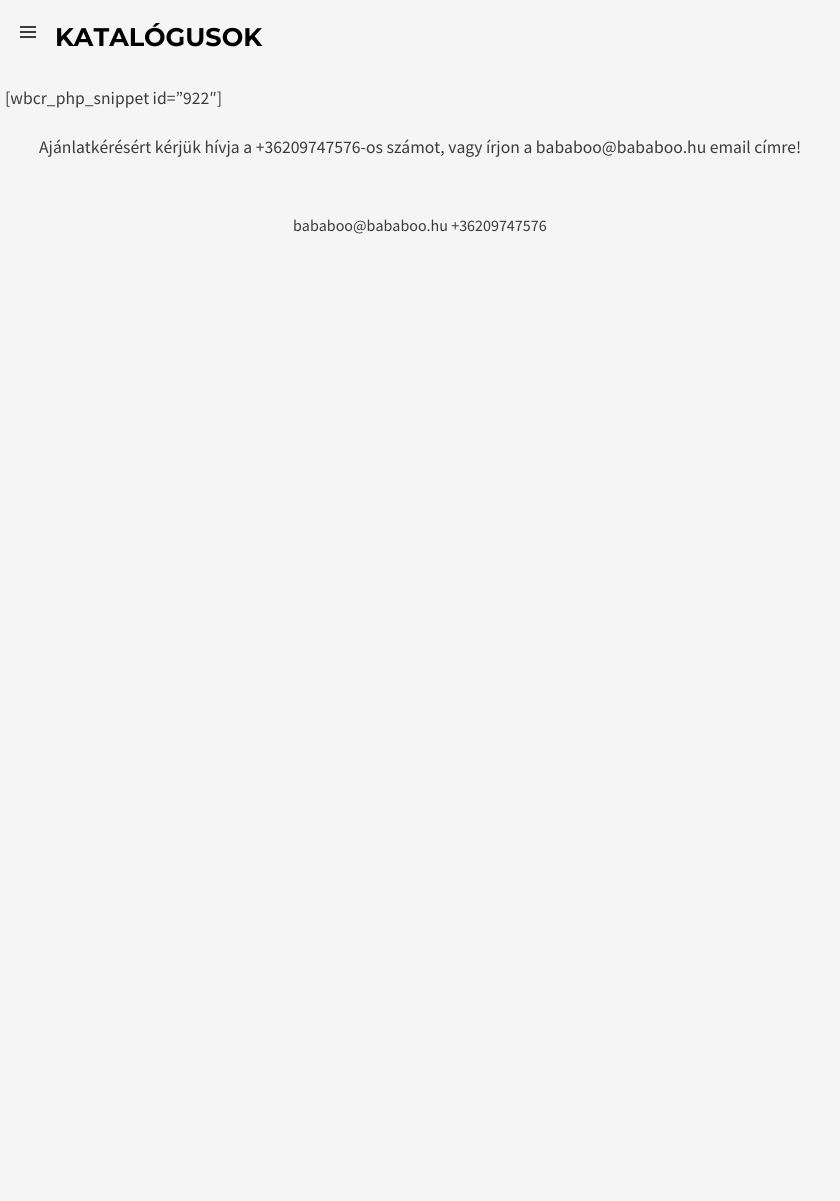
#include <cairo.h>
#include <math.h>
#include <stddef.h>


static void rgb(cairo_t *cr, int r, int g, int b)
{
	cairo_set_source_rgb(cr, r / 255.0, g / 255.0, b / 255.0);
}

static void face(cairo_t *cr, const char *family, double size, int italic, int bold)
{
	cairo_select_font_face(cr, family, italic ? CAIRO_FONT_SLANT_ITALIC : CAIRO_FONT_SLANT_NORMAL,
		bold ? CAIRO_FONT_WEIGHT_BOLD : CAIRO_FONT_WEIGHT_NORMAL);
	cairo_set_font_size(cr, size);
}

static void label(cairo_t *cr, double x, double y, const char *s)
{
	cairo_move_to(cr, x, y);
	cairo_show_text(cr, s);
}

static void image(cairo_t *cr, const char *path, double x, double y, double w, double h)
{
	cairo_surface_t *image = cairo_image_surface_create_from_png(path);
	cairo_save(cr);
	cairo_set_source_surface(cr, image, x, y);
	cairo_rectangle(cr, x, y, w, h);
	cairo_fill(cr);
	cairo_restore(cr);
	cairo_surface_destroy(image);
}

static void draw(cairo_t *cr) {
	rgb(cr, 245, 245, 245);
	cairo_paint(cr);
	face(cr, "Montserrat", 25.5, 0, 1);
	rgb(cr, 0, 0, 0);
	label(cr, 55, 46, "KATALÓGUSOK");
	face(cr, "Source Sans Pro", 17.6, 0, 0);
	rgb(cr, 59, 59, 59);
	label(cr, 5, 104, "[wbcr_php_snippet id=”922″]");
	label(cr, 39, 153, "Ajánlatkérésért kérjük hívja a +36209747576-os számot, vagy írjon a bababoo@bababoo.hu email címre!");
	face(cr, "Source Sans Pro", 16, 0, 0);
	label(cr, 293, 231, "bababoo@bababoo.hu +36209747576");
	image(cr, "image0.png", 20, 26, 16, 12);
}

int main(void) {
	cairo_surface_t *surface = cairo_image_surface_create(CAIRO_FORMAT_RGB24, 840, 1201);
	cairo_t *cr = cairo_create(surface);
	cairo_font_options_t *options = cairo_font_options_create();
	cairo_font_options_set_hint_metrics(options, CAIRO_HINT_METRICS_OFF);
	cairo_font_options_set_hint_style(options, CAIRO_HINT_STYLE_NONE);
	cairo_set_font_options(cr, options);
	cairo_set_miter_limit(cr, 4);
	draw(cr);
	cairo_surface_write_to_png(surface, "render.png");
	cairo_font_options_destroy(options);
	cairo_destroy(cr);
	cairo_surface_destroy(surface);
	return 0;
}
